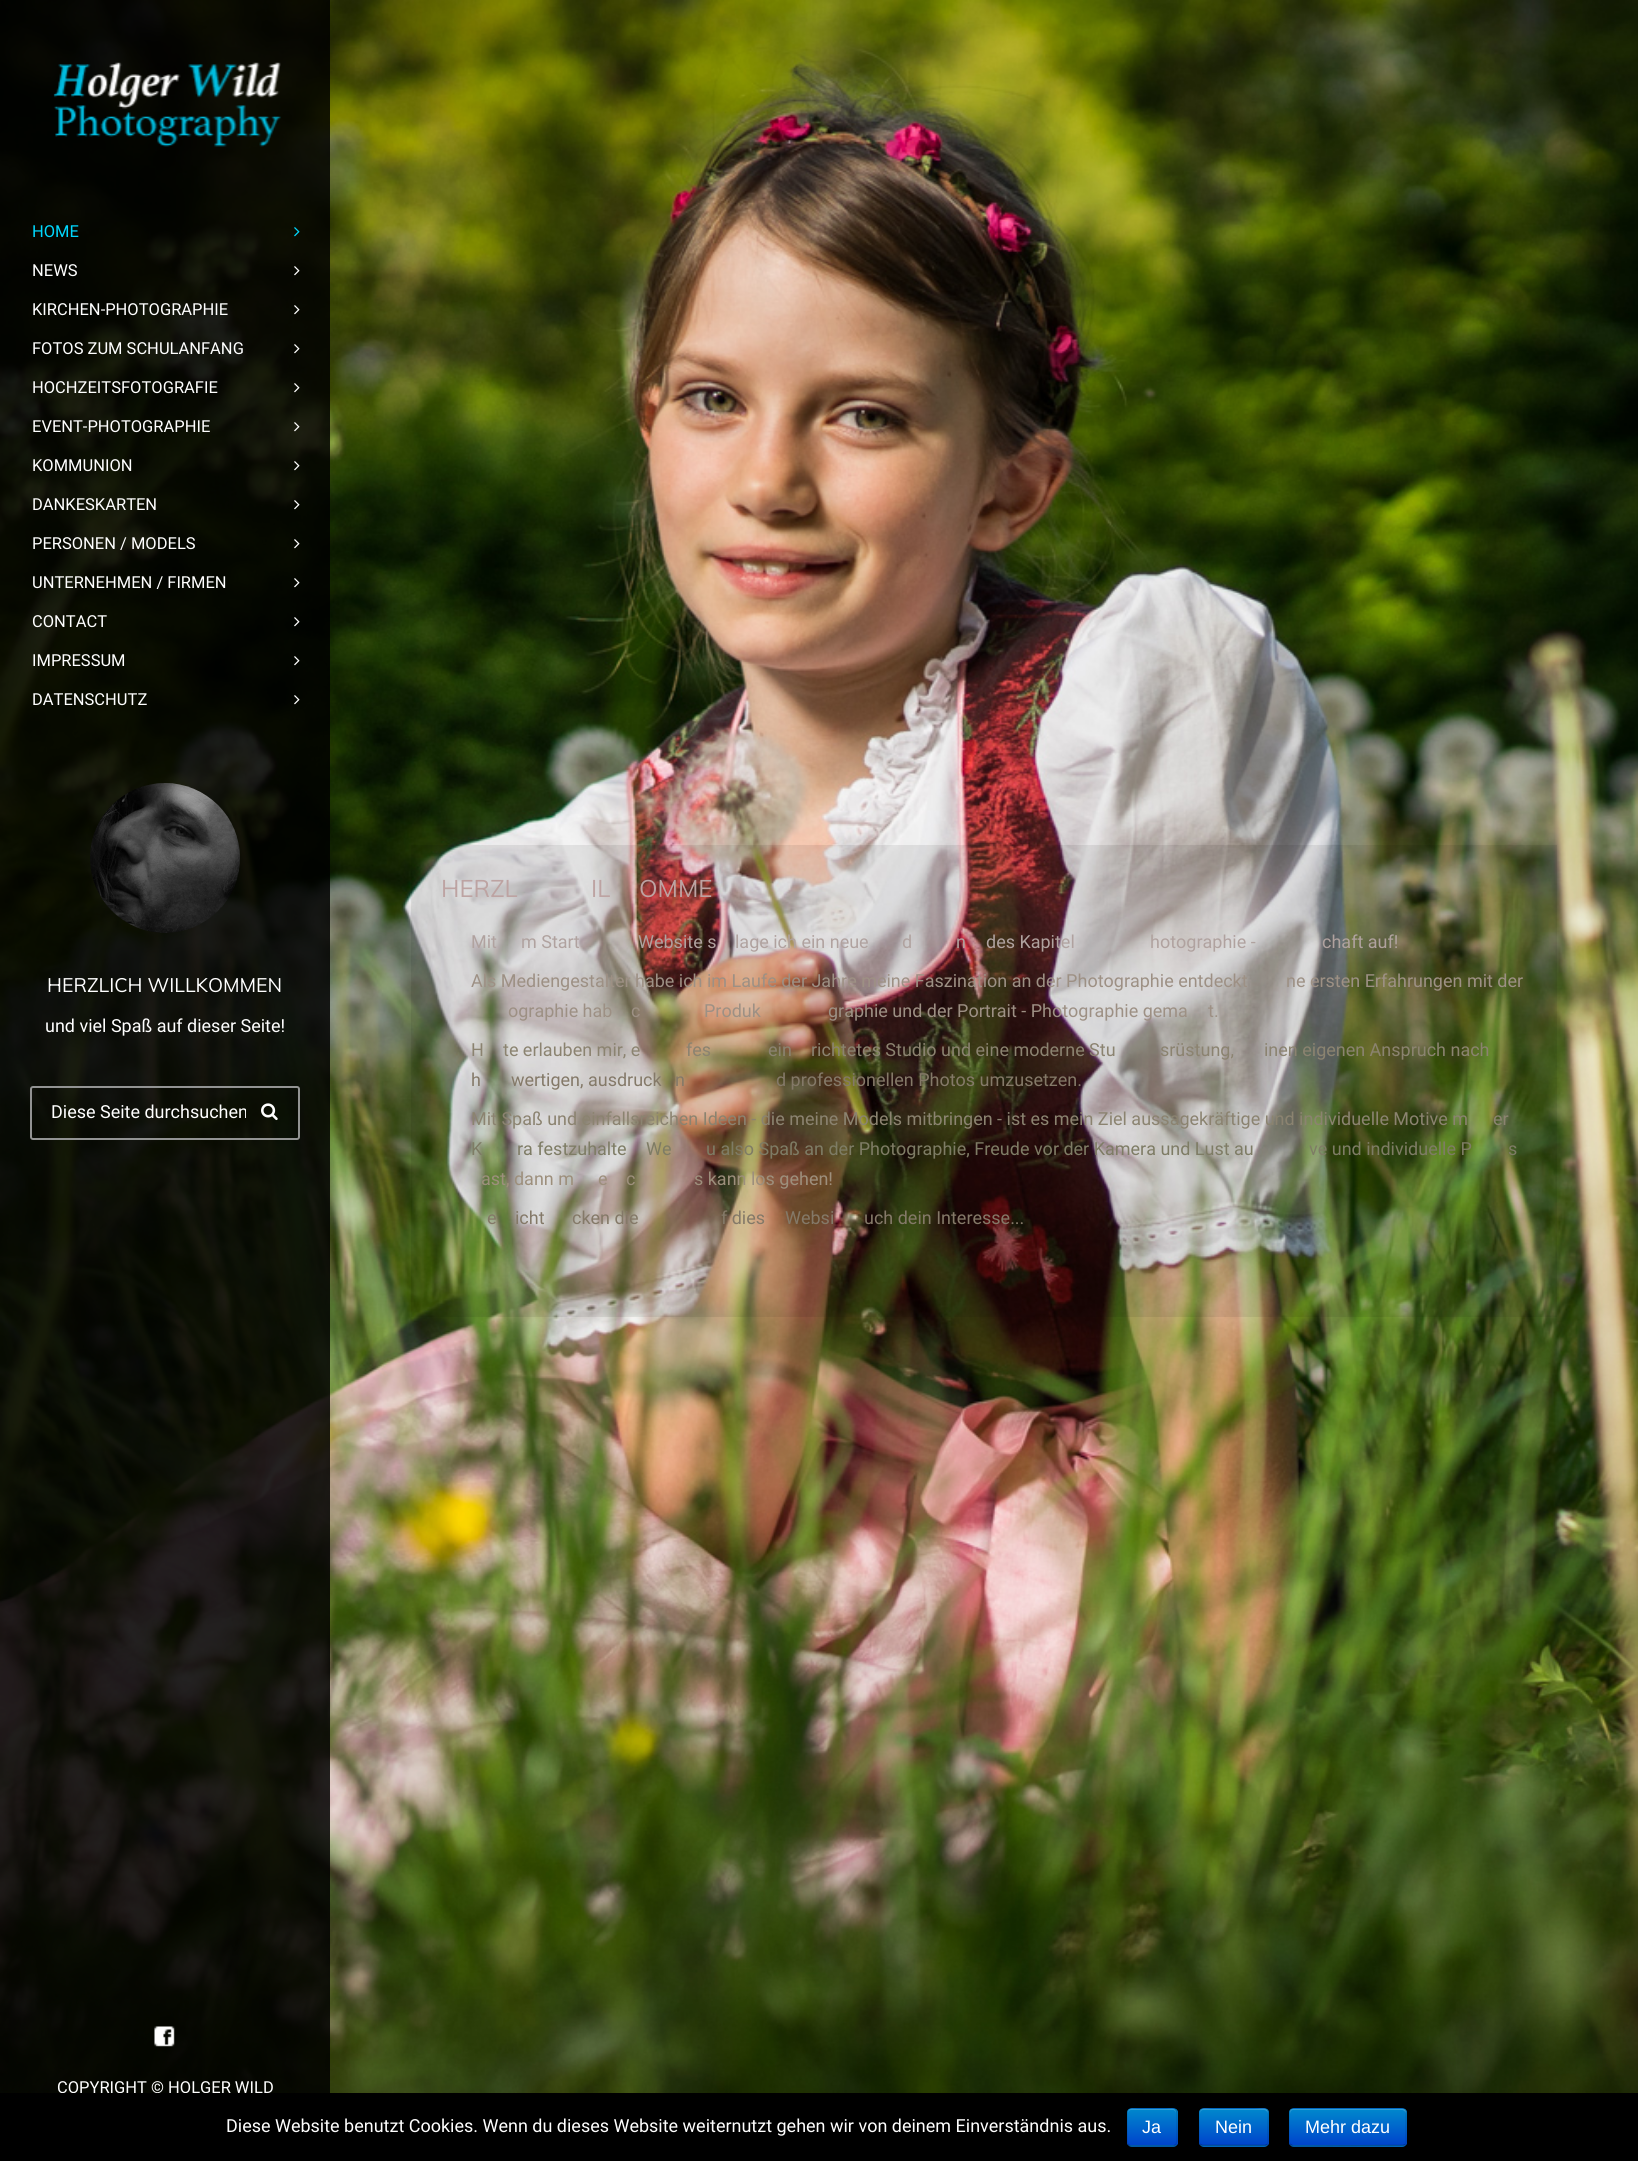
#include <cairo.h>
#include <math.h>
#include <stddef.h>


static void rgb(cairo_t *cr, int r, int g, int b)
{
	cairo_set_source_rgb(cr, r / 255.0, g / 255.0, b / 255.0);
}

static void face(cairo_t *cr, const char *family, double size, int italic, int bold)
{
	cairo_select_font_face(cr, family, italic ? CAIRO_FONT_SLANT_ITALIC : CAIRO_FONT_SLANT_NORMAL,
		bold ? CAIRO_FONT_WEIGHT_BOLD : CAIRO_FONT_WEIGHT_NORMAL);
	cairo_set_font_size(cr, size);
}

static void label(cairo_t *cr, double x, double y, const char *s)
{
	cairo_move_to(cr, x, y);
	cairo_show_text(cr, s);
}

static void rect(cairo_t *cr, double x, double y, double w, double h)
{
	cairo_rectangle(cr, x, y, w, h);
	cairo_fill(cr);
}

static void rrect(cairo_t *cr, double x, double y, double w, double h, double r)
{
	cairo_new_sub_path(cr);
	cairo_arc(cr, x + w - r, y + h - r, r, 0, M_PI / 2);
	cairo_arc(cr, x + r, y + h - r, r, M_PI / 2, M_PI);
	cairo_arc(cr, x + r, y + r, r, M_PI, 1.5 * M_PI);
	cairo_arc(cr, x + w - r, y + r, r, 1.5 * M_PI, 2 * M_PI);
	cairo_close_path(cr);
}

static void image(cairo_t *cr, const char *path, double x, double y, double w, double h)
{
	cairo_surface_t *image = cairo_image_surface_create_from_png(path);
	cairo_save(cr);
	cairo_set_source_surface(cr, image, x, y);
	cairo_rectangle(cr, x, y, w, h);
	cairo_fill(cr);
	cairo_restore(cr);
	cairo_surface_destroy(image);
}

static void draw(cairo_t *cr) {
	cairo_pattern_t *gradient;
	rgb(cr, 255, 255, 255);
	cairo_paint(cr);
	image(cr, "image0.png", 0, 0, 1638, 2093);
	cairo_set_source_rgba(cr, 0, 0, 0, 0.85);
	rect(cr, 0, 0, 330, 2093);
	image(cr, "image1.png", 53, 62, 228, 85);
	face(cr, "Roboto", 16.5, 0, 0);
	rgb(cr, 0, 216, 255);
	label(cr, 32, 237, "HOME");
	image(cr, "image2.png", 294, 227, 6, 10);
	rgb(cr, 255, 255, 255);
	label(cr, 32, 276, "NEWS");
	image(cr, "image3.png", 294, 266, 6, 10);
	label(cr, 32, 315, "KIRCHEN-PHOTOGRAPHIE");
	image(cr, "image4.png", 294, 305, 6, 10);
	label(cr, 32, 354, "FOTOS ZUM SCHULANFANG");
	image(cr, "image5.png", 294, 344, 6, 10);
	label(cr, 32, 393, "HOCHZEITSFOTOGRAFIE");
	image(cr, "image6.png", 294, 383, 6, 10);
	label(cr, 32, 432, "EVENT-PHOTOGRAPHIE");
	image(cr, "image7.png", 294, 422, 6, 10);
	label(cr, 32, 471, "KOMMUNION");
	image(cr, "image8.png", 294, 461, 6, 10);
	label(cr, 32, 510, "DANKESKARTEN");
	image(cr, "image9.png", 294, 500, 6, 10);
	label(cr, 32, 549, "PERSONEN / MODELS");
	image(cr, "image10.png", 294, 539, 6, 10);
	label(cr, 32, 588, "UNTERNEHMEN / FIRMEN");
	image(cr, "image11.png", 294, 578, 6, 10);
	label(cr, 32, 627, "CONTACT");
	image(cr, "image12.png", 294, 617, 6, 10);
	label(cr, 32, 666, "IMPRESSUM");
	image(cr, "image13.png", 294, 656, 6, 10);
	label(cr, 32, 705, "DATENSCHUTZ");
	image(cr, "image14.png", 294, 695, 6, 10);
	image(cr, "image15.png", 90, 783, 150, 150);
	face(cr, "Muli", 19.5, 0, 0);
	label(cr, 47, 992, "HERZLICH WILLKOMMEN");
	face(cr, "Roboto", 18, 0, 0);
	label(cr, 45, 1032, "und viel Spaß auf dieser Seite!");
	rrect(cr, 31, 1087, 268, 52, 2);
	rgb(cr, 146, 147, 147);
	cairo_stroke(cr);
	cairo_save(cr);
	cairo_rectangle(cr, 51, 1101, 195, 21);
	cairo_clip(cr);
	rgb(cr, 255, 255, 255);
	label(cr, 51, 1118, "Diese Seite durchsuchen");
	cairo_restore(cr);
	image(cr, "image16.png", 261, 1103, 17, 18);
	image(cr, "image17.png", 154, 2026, 21, 21);
	face(cr, "Roboto", 16.5, 0, 0);
	rgb(cr, 255, 255, 255);
	label(cr, 57, 2093, "COPYRIGHT © HOLGER WILD");
	cairo_set_source_rgba(cr, 0, 0, 0, 0.08);
	rect(cr, 411, 845, 1146, 472);
	face(cr, "Muli", 24, 0, 0);
	rgb(cr, 189, 163, 162);
	label(cr, 441, 897, "HERZL");
	label(cr, 591, 897, "IL");
	label(cr, 639, 897, "OMME");
	face(cr, "Roboto", 18, 0, 0);
	rgb(cr, 176, 162, 159);
	label(cr, 471, 948, "Mit");
	label(cr, 521, 948, "m Start");
	label(cr, 638, 948, "Website s");
	label(cr, 735, 948, "lage ich ein neue");
	label(cr, 902, 948, "d");
	label(cr, 956, 948, "n");
	label(cr, 986, 948, "des Kapitel");
	label(cr, 1150, 948, "hotographie -");
	label(cr, 1322, 948, "chaft auf!");
	rgb(cr, 157, 144, 132);
	label(cr, 471, 987, "Als Mediengestalter habe ich im Laufe der Jahre meine Faszination an der Photographie entdeckt");
	label(cr, 1286, 987, "ne ersten Erfahrungen mit der");
	label(cr, 508, 1017, "ographie hab");
	label(cr, 631, 1017, "c");
	label(cr, 704, 1017, "Produk");
	label(cr, 828, 1017, "graphie und der Portrait - Photographie gema");
	label(cr, 1208, 1017, "t.");
	rgb(cr, 139, 131, 112);
	label(cr, 471, 1056, "H");
	label(cr, 503, 1056, "te erlauben mir, e");
	label(cr, 686, 1056, "fes");
	label(cr, 768, 1056, "ein");
	label(cr, 811, 1056, "richtetes Studio und eine moderne Stu");
	label(cr, 1160, 1056, "srüstung,");
	label(cr, 1264, 1056, "inen eigenen Anspruch nach");
	rgb(cr, 132, 121, 104);
	label(cr, 471, 1086, "h");
	label(cr, 511, 1086, "wertigen, ausdruck");
	label(cr, 675, 1086, "n");
	label(cr, 776, 1086, "d professionellen Photos umzusetzen.");
	rgb(cr, 139, 131, 112);
	label(cr, 471, 1125, "Mit Spaß und einfallsreichen Ideen - die meine Models mitbringen - ist es mein Ziel aussagekräftige und individuelle Motive m");
	label(cr, 1493, 1125, "er");
	rgb(cr, 126, 124, 101);
	label(cr, 471, 1155, "K");
	label(cr, 517, 1155, "ra festzuhalte");
	label(cr, 646, 1155, "We");
	label(cr, 706, 1155, "u also Spaß an der Photographie, Freude vor der Kamera und Lust au");
	label(cr, 1309, 1155, "ve und individuelle P");
	label(cr, 1508, 1155, "s");
	rgb(cr, 157, 143, 124);
	label(cr, 481, 1185, "ast, dann m");
	label(cr, 598, 1185, "e");
	label(cr, 626, 1185, "c");
	label(cr, 694, 1185, "s kann los gehen!");
	rgb(cr, 132, 121, 104);
	label(cr, 487, 1224, "e");
	label(cr, 515, 1224, "icht");
	label(cr, 572, 1224, "cken die");
	label(cr, 721, 1224, "f dies");
	label(cr, 785, 1224, "Websi");
	label(cr, 864, 1224, "uch dein Interesse...");
	rgb(cr, 0, 0, 0);
	rect(cr, 0, 2093, 1638, 68);
	rgb(cr, 255, 255, 255);
	label(cr, 226, 2132, "Diese Website benutzt Cookies. Wenn du dieses Website weiternutzt gehen wir von deinem Einverständnis aus.");
	rgb(cr, 0, 109, 204);
	rrect(cr, 1127, 2108, 51, 39, 5);
	cairo_fill(cr);
	cairo_save(cr);
	rrect(cr, 1127, 2108, 51, 39, 5);
	cairo_clip(cr);
	gradient = cairo_pattern_create_linear(1152, 2109, 1152, 2145);
	cairo_pattern_add_color_stop_rgba(gradient, 0, 0, 0.533, 0.8, 1);
	cairo_pattern_add_color_stop_rgba(gradient, 1, 0, 0.267, 0.8, 1);
	cairo_set_source(cr, gradient);
	cairo_pattern_destroy(gradient);
	rect(cr, 1127, 2109, 51, 36);
	cairo_restore(cr);
	rgb(cr, 51, 159, 214);
	cairo_new_path(cr);
	cairo_move_to(cr, 1131, 2110);
	cairo_line_to(cr, 1173, 2110);
	cairo_curve_to(cr, 1175, 2110, 1176, 2112, 1176, 2114);
	cairo_curve_to(cr, 1176, 2107, 1172, 2109, 1166, 2109);
	cairo_line_to(cr, 1138, 2109);
	cairo_curve_to(cr, 1132, 2109, 1128, 2107, 1128, 2114);
	cairo_curve_to(cr, 1128, 2112, 1129, 2110, 1131, 2110);
	cairo_close_path(cr);
	cairo_fill(cr);
	cairo_new_path(cr);
	cairo_move_to(cr, 1175.5, 2144.5);
	cairo_curve_to(cr, 1175, 2145.5, 1174, 2146, 1173, 2146);
	cairo_line_to(cr, 1131, 2146);
	cairo_curve_to(cr, 1130, 2146, 1129, 2145.5, 1128.5, 2144.5);
	cairo_set_source_rgba(cr, 0, 0, 0, 0.25);
	cairo_set_line_width(cr, 1.5);
	cairo_stroke(cr);
	cairo_new_path(cr);
	cairo_move_to(cr, 1128.5, 2144.5);
	cairo_curve_to(cr, 1126.5, 2143, 1127, 2139, 1127, 2137);
	cairo_line_to(cr, 1127, 2117);
	cairo_curve_to(cr, 1127, 2107, 1128, 2108, 1138, 2108);
	cairo_line_to(cr, 1166, 2108);
	cairo_curve_to(cr, 1176, 2108, 1177, 2107, 1177, 2117);
	cairo_line_to(cr, 1177, 2137);
	cairo_curve_to(cr, 1177, 2139, 1177.5, 2143, 1175.5, 2144.5);
	cairo_set_source_rgba(cr, 0, 0, 0, 0.1);
	cairo_stroke(cr);
	face(cr, "Liberation Sans", 18, 0, 0);
	rgb(cr, 255, 255, 255);
	label(cr, 1142, 2133, "Ja");
	rgb(cr, 0, 109, 204);
	rrect(cr, 1199, 2108, 70, 39, 5);
	cairo_fill(cr);
	cairo_save(cr);
	rrect(cr, 1199, 2108, 70, 39, 5);
	cairo_clip(cr);
	gradient = cairo_pattern_create_linear(1234, 2109, 1234, 2145);
	cairo_pattern_add_color_stop_rgba(gradient, 0, 0, 0.533, 0.8, 1);
	cairo_pattern_add_color_stop_rgba(gradient, 1, 0, 0.267, 0.8, 1);
	cairo_set_source(cr, gradient);
	cairo_pattern_destroy(gradient);
	rect(cr, 1199, 2109, 70, 36);
	cairo_restore(cr);
	cairo_set_source_rgba(cr, 1, 1, 1, 0.2);
	cairo_new_path(cr);
	cairo_move_to(cr, 1203, 2110);
	cairo_line_to(cr, 1264, 2110);
	cairo_curve_to(cr, 1266, 2110, 1268, 2112, 1268, 2114);
	cairo_curve_to(cr, 1268, 2106, 1262, 2109, 1255, 2109);
	cairo_line_to(cr, 1213, 2109);
	cairo_curve_to(cr, 1206, 2109, 1200, 2106, 1200, 2114);
	cairo_curve_to(cr, 1200, 2112, 1201, 2110, 1203, 2110);
	cairo_close_path(cr);
	cairo_fill(cr);
	cairo_new_path(cr);
	cairo_move_to(cr, 1267, 2144.5);
	cairo_line_to(cr, 1265, 2145.5);
	cairo_line_to(cr, 1202.5, 2145.5);
	cairo_line_to(cr, 1200.5, 2144.5);
	cairo_set_source_rgba(cr, 0, 0, 0, 0.25);
	cairo_stroke(cr);
	cairo_new_path(cr);
	cairo_move_to(cr, 1200.5, 2144.5);
	cairo_curve_to(cr, 1198.5, 2143, 1199, 2139, 1199, 2137);
	cairo_line_to(cr, 1199, 2127);
	cairo_curve_to(cr, 1199, 2107.5, 1195, 2108, 1213, 2108);
	cairo_line_to(cr, 1254, 2108);
	cairo_curve_to(cr, 1272.5, 2108, 1268, 2107.5, 1268, 2127);
	cairo_line_to(cr, 1268, 2137);
	cairo_curve_to(cr, 1268, 2139, 1269, 2143, 1267, 2144.5);
	cairo_set_source_rgba(cr, 0, 0, 0, 0.1);
	cairo_stroke(cr);
	rgb(cr, 255, 255, 255);
	label(cr, 1215, 2133, "Nein");
	rgb(cr, 0, 109, 204);
	rrect(cr, 1289, 2108, 118, 39, 5);
	cairo_fill(cr);
	cairo_save(cr);
	rrect(cr, 1289, 2108, 118, 39, 5);
	cairo_clip(cr);
	gradient = cairo_pattern_create_linear(1348, 2109, 1348, 2145);
	cairo_pattern_add_color_stop_rgba(gradient, 0, 0, 0.533, 0.8, 1);
	cairo_pattern_add_color_stop_rgba(gradient, 1, 0, 0.267, 0.8, 1);
	cairo_set_source(cr, gradient);
	cairo_pattern_destroy(gradient);
	rect(cr, 1289, 2109, 118, 36);
	cairo_restore(cr);
	cairo_set_source_rgba(cr, 1, 1, 1, 0.2);
	cairo_new_path(cr);
	cairo_move_to(cr, 1293, 2110);
	cairo_line_to(cr, 1402, 2110);
	cairo_curve_to(cr, 1404, 2110, 1406, 2112, 1406, 2114);
	cairo_line_to(cr, 1406, 2112);
	cairo_curve_to(cr, 1406, 2110, 1405, 2109, 1403, 2109);
	cairo_line_to(cr, 1293, 2109);
	cairo_curve_to(cr, 1291, 2109, 1290, 2110, 1290, 2112);
	cairo_line_to(cr, 1290, 2114);
	cairo_curve_to(cr, 1290, 2112, 1291, 2110, 1293, 2110);
	cairo_close_path(cr);
	cairo_fill(cr);
	cairo_new_path(cr);
	cairo_move_to(cr, 1405, 2144.5);
	cairo_line_to(cr, 1403, 2145.5);
	cairo_line_to(cr, 1311, 2146);
	cairo_line_to(cr, 1293, 2146);
	cairo_line_to(cr, 1290.5, 2144.5);
	cairo_set_source_rgba(cr, 0, 0, 0, 0.25);
	cairo_stroke(cr);
	cairo_new_path(cr);
	cairo_move_to(cr, 1290.5, 2144.5);
	cairo_curve_to(cr, 1288, 2142, 1289, 2134.5, 1289, 2132);
	cairo_line_to(cr, 1289, 2117);
	cairo_curve_to(cr, 1289, 2114, 1288.5, 2108.5, 1293, 2108);
	cairo_line_to(cr, 1384, 2108);
	cairo_curve_to(cr, 1409.5, 2108, 1406, 2104, 1406, 2127);
	cairo_line_to(cr, 1406, 2137);
	cairo_curve_to(cr, 1406, 2139, 1407, 2143, 1405, 2144.5);
	cairo_set_source_rgba(cr, 0, 0, 0, 0.1);
	cairo_stroke(cr);
	rgb(cr, 255, 255, 255);
	label(cr, 1305, 2133, "Mehr dazu");
}

int main(void) {
	cairo_surface_t *surface = cairo_image_surface_create(CAIRO_FORMAT_RGB24, 1638, 2161);
	cairo_t *cr = cairo_create(surface);
	cairo_font_options_t *options = cairo_font_options_create();
	cairo_font_options_set_hint_metrics(options, CAIRO_HINT_METRICS_OFF);
	cairo_font_options_set_hint_style(options, CAIRO_HINT_STYLE_NONE);
	cairo_set_font_options(cr, options);
	cairo_set_miter_limit(cr, 4);
	draw(cr);
	cairo_surface_write_to_png(surface, "render.png");
	cairo_font_options_destroy(options);
	cairo_destroy(cr);
	cairo_surface_destroy(surface);
	return 0;
}
